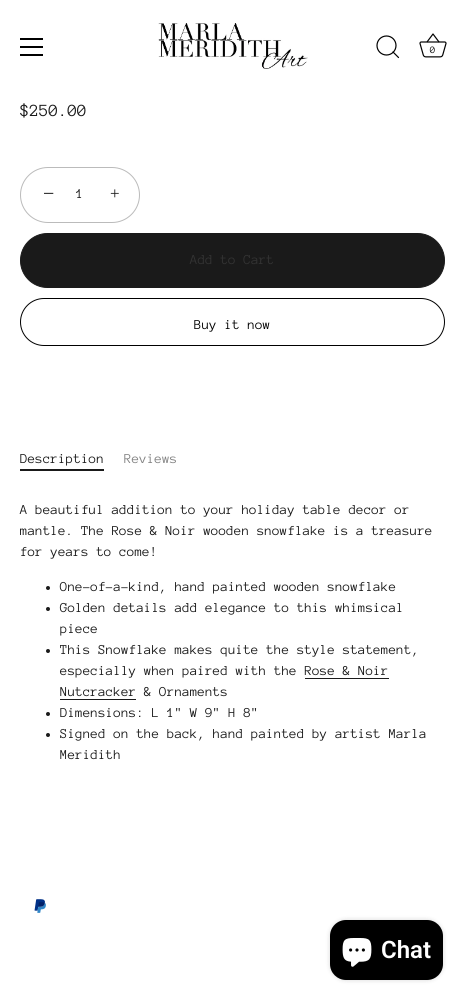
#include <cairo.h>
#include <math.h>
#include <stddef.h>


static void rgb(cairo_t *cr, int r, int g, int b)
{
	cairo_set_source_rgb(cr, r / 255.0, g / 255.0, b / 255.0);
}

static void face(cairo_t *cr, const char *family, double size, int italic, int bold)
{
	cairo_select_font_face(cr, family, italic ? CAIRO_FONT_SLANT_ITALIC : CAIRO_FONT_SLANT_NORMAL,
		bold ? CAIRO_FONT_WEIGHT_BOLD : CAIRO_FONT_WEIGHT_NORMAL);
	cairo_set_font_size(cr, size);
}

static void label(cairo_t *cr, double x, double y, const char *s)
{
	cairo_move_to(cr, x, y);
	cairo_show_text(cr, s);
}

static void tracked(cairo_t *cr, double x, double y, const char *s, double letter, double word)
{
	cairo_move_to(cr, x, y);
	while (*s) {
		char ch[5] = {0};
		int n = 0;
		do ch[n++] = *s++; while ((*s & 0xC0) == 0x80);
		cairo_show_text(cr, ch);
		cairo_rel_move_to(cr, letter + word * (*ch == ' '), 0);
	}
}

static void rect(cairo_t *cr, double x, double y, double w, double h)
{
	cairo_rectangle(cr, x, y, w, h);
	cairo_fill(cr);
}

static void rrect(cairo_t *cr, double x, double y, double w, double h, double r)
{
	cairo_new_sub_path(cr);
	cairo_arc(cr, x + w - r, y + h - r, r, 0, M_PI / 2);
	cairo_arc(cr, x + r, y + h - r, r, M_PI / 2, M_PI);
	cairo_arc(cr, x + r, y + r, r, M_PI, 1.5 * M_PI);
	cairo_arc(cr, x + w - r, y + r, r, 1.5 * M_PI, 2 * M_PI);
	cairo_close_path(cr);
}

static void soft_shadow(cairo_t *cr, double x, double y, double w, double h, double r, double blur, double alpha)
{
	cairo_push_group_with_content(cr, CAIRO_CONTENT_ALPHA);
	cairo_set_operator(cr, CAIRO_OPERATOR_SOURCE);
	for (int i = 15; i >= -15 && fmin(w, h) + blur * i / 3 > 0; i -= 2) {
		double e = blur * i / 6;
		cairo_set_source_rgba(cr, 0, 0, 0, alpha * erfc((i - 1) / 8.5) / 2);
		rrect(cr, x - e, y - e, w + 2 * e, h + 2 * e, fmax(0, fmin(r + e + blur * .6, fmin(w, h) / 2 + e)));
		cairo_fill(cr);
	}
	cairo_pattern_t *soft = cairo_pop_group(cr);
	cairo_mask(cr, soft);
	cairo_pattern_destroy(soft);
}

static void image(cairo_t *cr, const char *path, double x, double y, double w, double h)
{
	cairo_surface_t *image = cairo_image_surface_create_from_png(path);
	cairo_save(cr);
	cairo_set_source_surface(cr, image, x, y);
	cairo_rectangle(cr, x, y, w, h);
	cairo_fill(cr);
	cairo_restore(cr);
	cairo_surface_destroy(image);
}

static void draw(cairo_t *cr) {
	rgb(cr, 255, 255, 255);
	cairo_paint(cr);
	rgb(cr, 0, 0, 0);
	rect(cr, 20, 38, 23, 2);
	rect(cr, 20, 46, 23, 2);
	rect(cr, 20, 54, 23, 2);
	image(cr, "image0.png", 158, 23, 150, 46);
	cairo_arc(cr, 386.5, 45.5, 9.5, 0, 2 * M_PI);
	cairo_set_line_width(cr, 1.2);
	cairo_stroke(cr);
	cairo_new_path(cr);
	cairo_move_to(cr, 398.5, 57.5);
	cairo_line_to(cr, 393, 52);
	cairo_set_line_cap(cr, CAIRO_LINE_CAP_ROUND);
	cairo_set_line_join(cr, CAIRO_LINE_JOIN_ROUND);
	cairo_stroke(cr);
	image(cr, "image1.png", 419, 33, 28, 25);
	face(cr, "Anonymous Pro", 10, 0, 0);
	label(cr, 430, 53, "0");
	face(cr, "Anonymous Pro", 17.5, 0, 0);
	rgb(cr, 26, 26, 26);
	label(cr, 20, 116, "$250.00");
	rrect(cr, 20.5, 167.5, 119, 55, 27.5);
	rgb(cr, 187, 187, 187);
	cairo_set_line_width(cr, 1);
	cairo_set_line_cap(cr, CAIRO_LINE_CAP_BUTT);
	cairo_set_line_join(cr, CAIRO_LINE_JOIN_MITER);
	cairo_stroke(cr);
	face(cr, "Liberation Serif", 20, 0, 0);
	rgb(cr, 26, 26, 26);
	label(cr, 43, 200, "−");
	face(cr, "Anonymous Pro", 14, 0, 0);
	tracked(cr, 76, 198, "1", 1, 0);
	face(cr, "Liberation Serif", 17, 0, 0);
	label(cr, 110, 199, "+");
	rrect(cr, 20.5, 233.5, 424, 54, 27);
	cairo_fill_preserve(cr);
	cairo_stroke(cr);
	face(cr, "Anonymous Pro", 14, 0, 0);
	rgb(cr, 51, 51, 51);
	label(cr, 190, 264, "Add to Cart");
	rrect(cr, 20.5, 298.5, 424, 47, 23.5);
	rgb(cr, 0, 0, 0);
	cairo_stroke(cr);
	label(cr, 194, 329, "Buy it now");
	rgb(cr, 26, 26, 26);
	label(cr, 20, 463, "Description");
	rect(cr, 20, 469, 84, 2);
	rgb(cr, 129, 129, 129);
	label(cr, 124, 463, "Reviews");
	rgb(cr, 26, 26, 26);
	label(cr, 20, 514, "A beautiful addition to your holiday table decor or");
	label(cr, 20, 535, "mantle. The Rose & Noir wooden snowflake is a treasure");
	label(cr, 20, 556, "for years to come!");
	cairo_new_path(cr);
	cairo_arc(cr, 48, 588, 2, 0, 2 * M_PI);
	cairo_fill(cr);
	label(cr, 60, 591, "One-of-a-kind, hand painted wooden snowflake");
	cairo_new_path(cr);
	cairo_arc(cr, 48, 609, 2, 0, 2 * M_PI);
	cairo_fill(cr);
	label(cr, 60, 612, "Golden details add elegance to this whimsical");
	label(cr, 60, 633, "piece");
	cairo_new_path(cr);
	cairo_arc(cr, 48, 651, 2, 0, 2 * M_PI);
	cairo_fill(cr);
	label(cr, 60, 654, "This Snowflake makes quite the style statement,");
	label(cr, 60, 675, "especially when paired with the Rose & Noir");
	rect(cr, 305, 678, 84, 1);
	label(cr, 60, 696, "Nutcracker & Ornaments");
	rect(cr, 60, 699, 76, 1);
	cairo_new_path(cr);
	cairo_arc(cr, 48, 714, 2, 0, 2 * M_PI);
	cairo_fill(cr);
	label(cr, 60, 717, "Dimensions: L 1\" W 9\" H 8\"");
	cairo_new_path(cr);
	cairo_arc(cr, 48, 735, 2, 0, 2 * M_PI);
	cairo_fill(cr);
	label(cr, 60, 738, "Signed on the back, hand painted by artist Marla");
	label(cr, 60, 759, "Meridith");
	image(cr, "image2.png", 34, 899, 12, 14);
	rgb(cr, 0, 0, 0);
	soft_shadow(cr, 330, 920, 113, 60, 16, 2.5, 0.15);
	rgb(cr, 0, 0, 0);
	rrect(cr, 330, 920, 113, 60, 16);
	cairo_fill(cr);
	image(cr, "image3.png", 342, 938, 30, 29);
	face(cr, "Roboto SemiBold", 24, 0, 0);
	rgb(cr, 255, 255, 255);
	label(cr, 381, 958, "Chat");
}

int main(void) {
	cairo_surface_t *surface = cairo_image_surface_create(CAIRO_FORMAT_RGB24, 465, 1001);
	cairo_t *cr = cairo_create(surface);
	cairo_font_options_t *options = cairo_font_options_create();
	cairo_font_options_set_hint_metrics(options, CAIRO_HINT_METRICS_OFF);
	cairo_font_options_set_hint_style(options, CAIRO_HINT_STYLE_NONE);
	cairo_set_font_options(cr, options);
	cairo_set_miter_limit(cr, 4);
	draw(cr);
	cairo_surface_write_to_png(surface, "render.png");
	cairo_font_options_destroy(options);
	cairo_destroy(cr);
	cairo_surface_destroy(surface);
	return 0;
}
